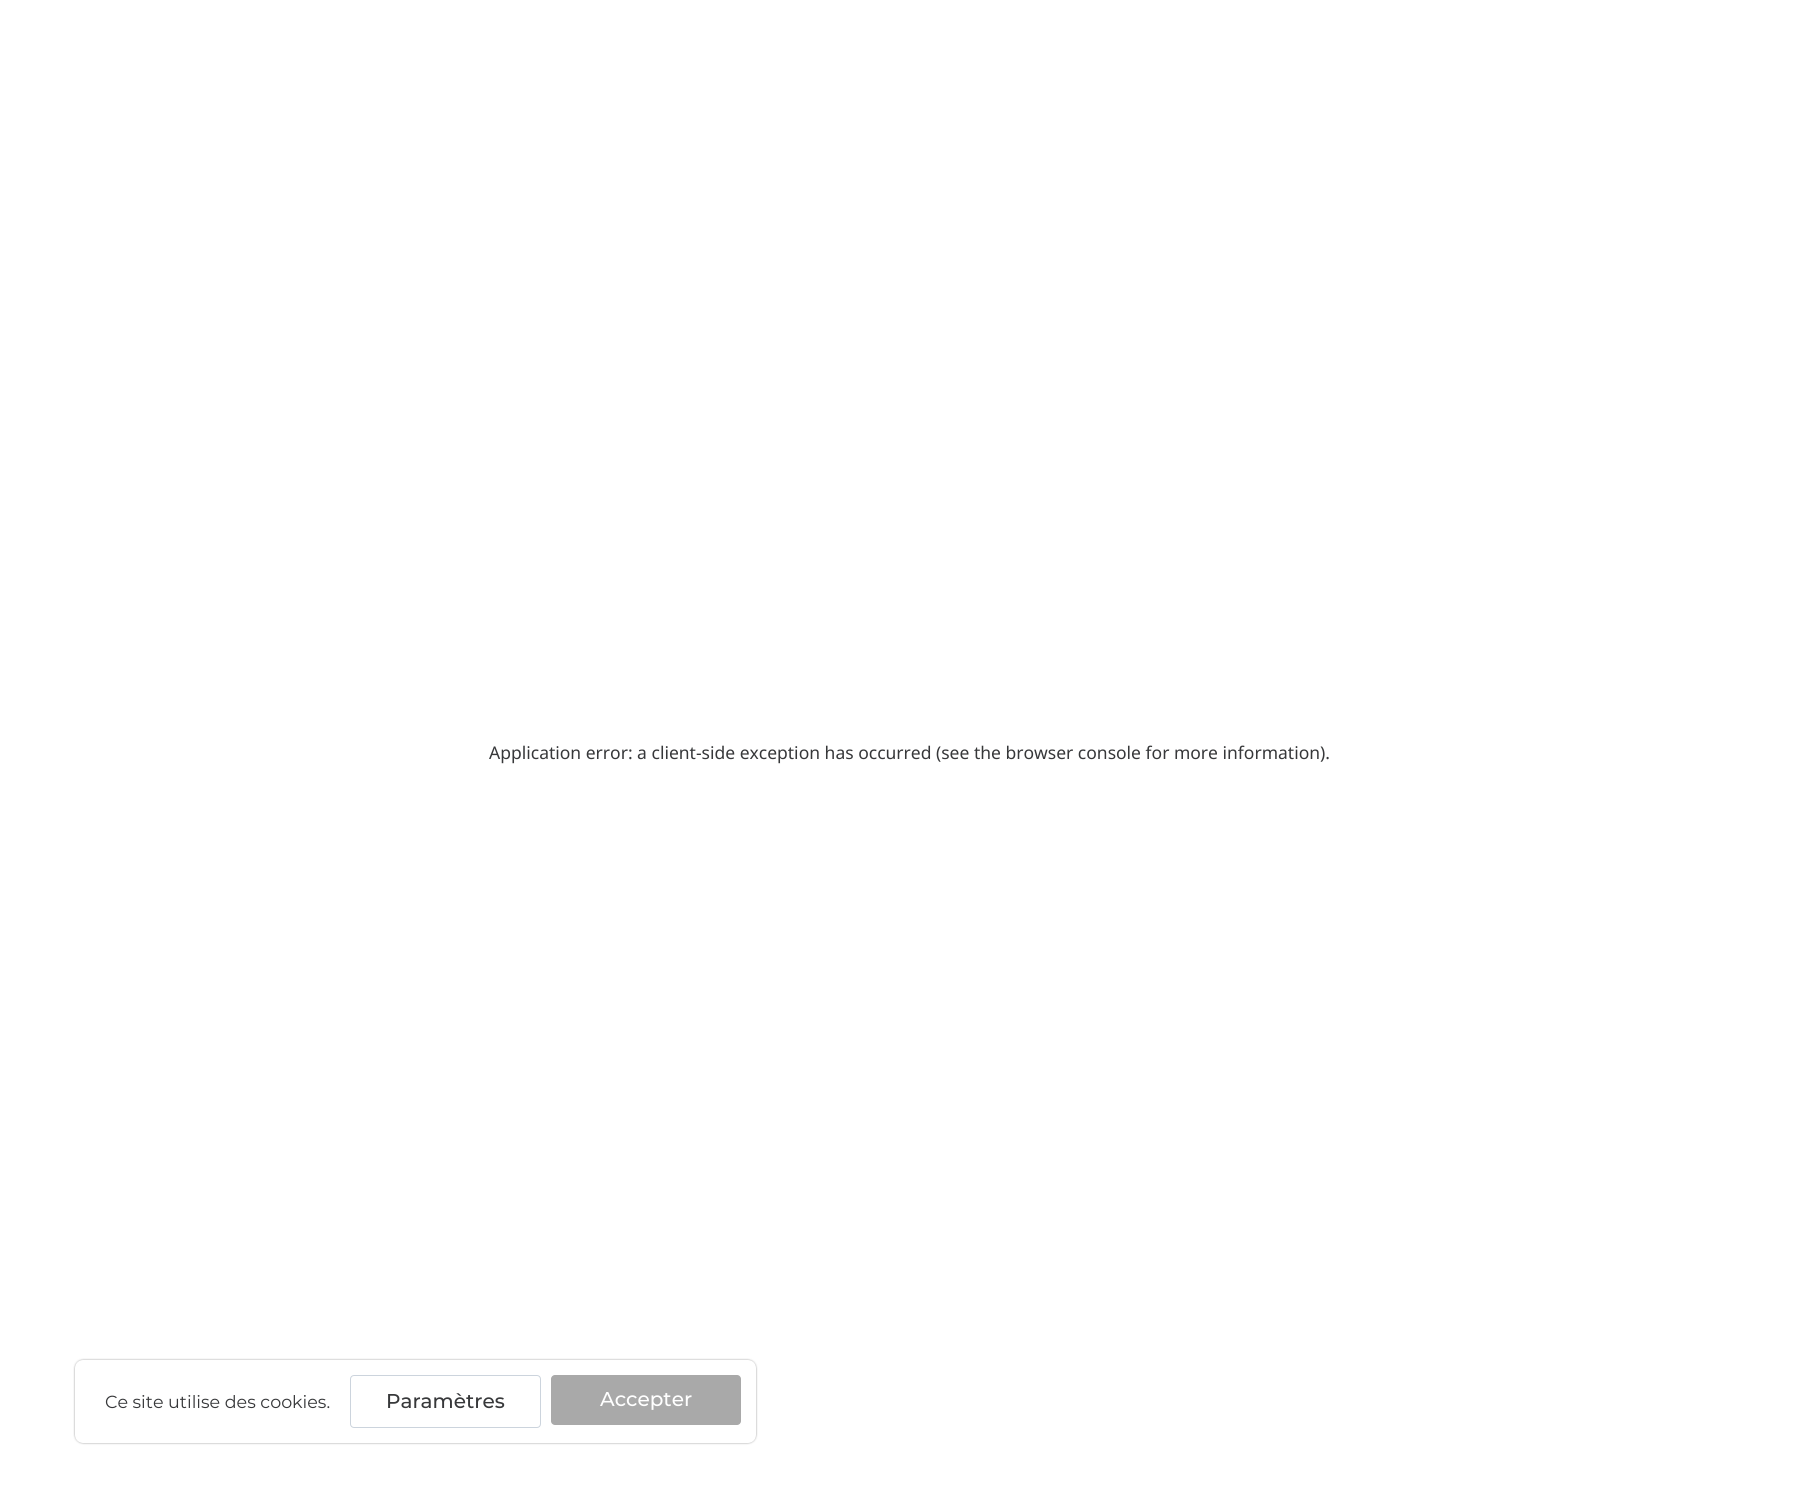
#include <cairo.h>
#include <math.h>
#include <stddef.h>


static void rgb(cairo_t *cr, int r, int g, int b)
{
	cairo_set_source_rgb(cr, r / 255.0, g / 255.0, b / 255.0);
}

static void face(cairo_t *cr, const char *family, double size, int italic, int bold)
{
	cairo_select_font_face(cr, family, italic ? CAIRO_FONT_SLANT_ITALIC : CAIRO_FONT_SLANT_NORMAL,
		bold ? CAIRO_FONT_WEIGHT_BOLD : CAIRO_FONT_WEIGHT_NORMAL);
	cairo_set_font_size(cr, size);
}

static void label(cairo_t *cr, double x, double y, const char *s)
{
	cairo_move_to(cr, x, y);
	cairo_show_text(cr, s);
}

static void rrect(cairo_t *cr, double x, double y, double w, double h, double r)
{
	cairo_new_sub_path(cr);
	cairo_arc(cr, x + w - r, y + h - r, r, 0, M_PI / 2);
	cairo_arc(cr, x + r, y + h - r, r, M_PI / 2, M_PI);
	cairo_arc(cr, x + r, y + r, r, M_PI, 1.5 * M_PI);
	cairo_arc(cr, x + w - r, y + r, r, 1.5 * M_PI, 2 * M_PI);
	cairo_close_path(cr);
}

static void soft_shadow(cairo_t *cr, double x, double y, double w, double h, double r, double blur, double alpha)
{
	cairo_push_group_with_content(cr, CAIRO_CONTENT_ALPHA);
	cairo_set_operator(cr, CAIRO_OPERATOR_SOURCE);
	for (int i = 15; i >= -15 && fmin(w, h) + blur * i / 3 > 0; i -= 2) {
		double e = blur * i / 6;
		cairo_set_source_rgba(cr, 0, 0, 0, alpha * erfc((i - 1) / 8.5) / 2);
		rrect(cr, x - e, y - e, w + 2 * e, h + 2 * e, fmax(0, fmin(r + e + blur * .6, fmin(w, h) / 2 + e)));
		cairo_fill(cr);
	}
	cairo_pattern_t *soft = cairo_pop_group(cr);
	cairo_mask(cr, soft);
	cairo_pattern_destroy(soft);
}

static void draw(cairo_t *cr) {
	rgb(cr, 255, 255, 255);
	cairo_paint(cr);
	face(cr, "Noto Sans", 17.5, 0, 0);
	rgb(cr, 55, 56, 58);
	label(cr, 489, 759, "Application error: a client-side exception has occurred (see the browser console for more information).");
	rgb(cr, 0, 0, 0);
	soft_shadow(cr, 75, 1360, 681, 83, 8, 1, 0.4);
	rgb(cr, 255, 255, 255);
	rrect(cr, 75, 1360, 681, 83, 8);
	cairo_fill(cr);
	face(cr, "Montserrat", 17.5, 0, 0);
	rgb(cr, 55, 56, 58);
	label(cr, 105, 1408, "Ce site utilise des cookies.");
	rrect(cr, 350.5, 1375.5, 190, 52, 3.5);
	rgb(cr, 204, 212, 221);
	cairo_set_line_width(cr, 1);
	cairo_stroke(cr);
	face(cr, "Montserrat Medium", 20, 0, 0);
	rgb(cr, 55, 56, 58);
	label(cr, 386, 1408, "Paramètres");
	rgb(cr, 169, 169, 169);
	rrect(cr, 551, 1375, 190, 50, 4);
	cairo_fill(cr);
	rgb(cr, 255, 255, 255);
	label(cr, 600, 1406, "Accepter");
}

int main(void) {
	cairo_surface_t *surface = cairo_image_surface_create(CAIRO_FORMAT_RGB24, 1818, 1505);
	cairo_t *cr = cairo_create(surface);
	cairo_font_options_t *options = cairo_font_options_create();
	cairo_font_options_set_hint_metrics(options, CAIRO_HINT_METRICS_OFF);
	cairo_font_options_set_hint_style(options, CAIRO_HINT_STYLE_NONE);
	cairo_set_font_options(cr, options);
	cairo_set_miter_limit(cr, 4);
	draw(cr);
	cairo_surface_write_to_png(surface, "render.png");
	cairo_font_options_destroy(options);
	cairo_destroy(cr);
	cairo_surface_destroy(surface);
	return 0;
}
